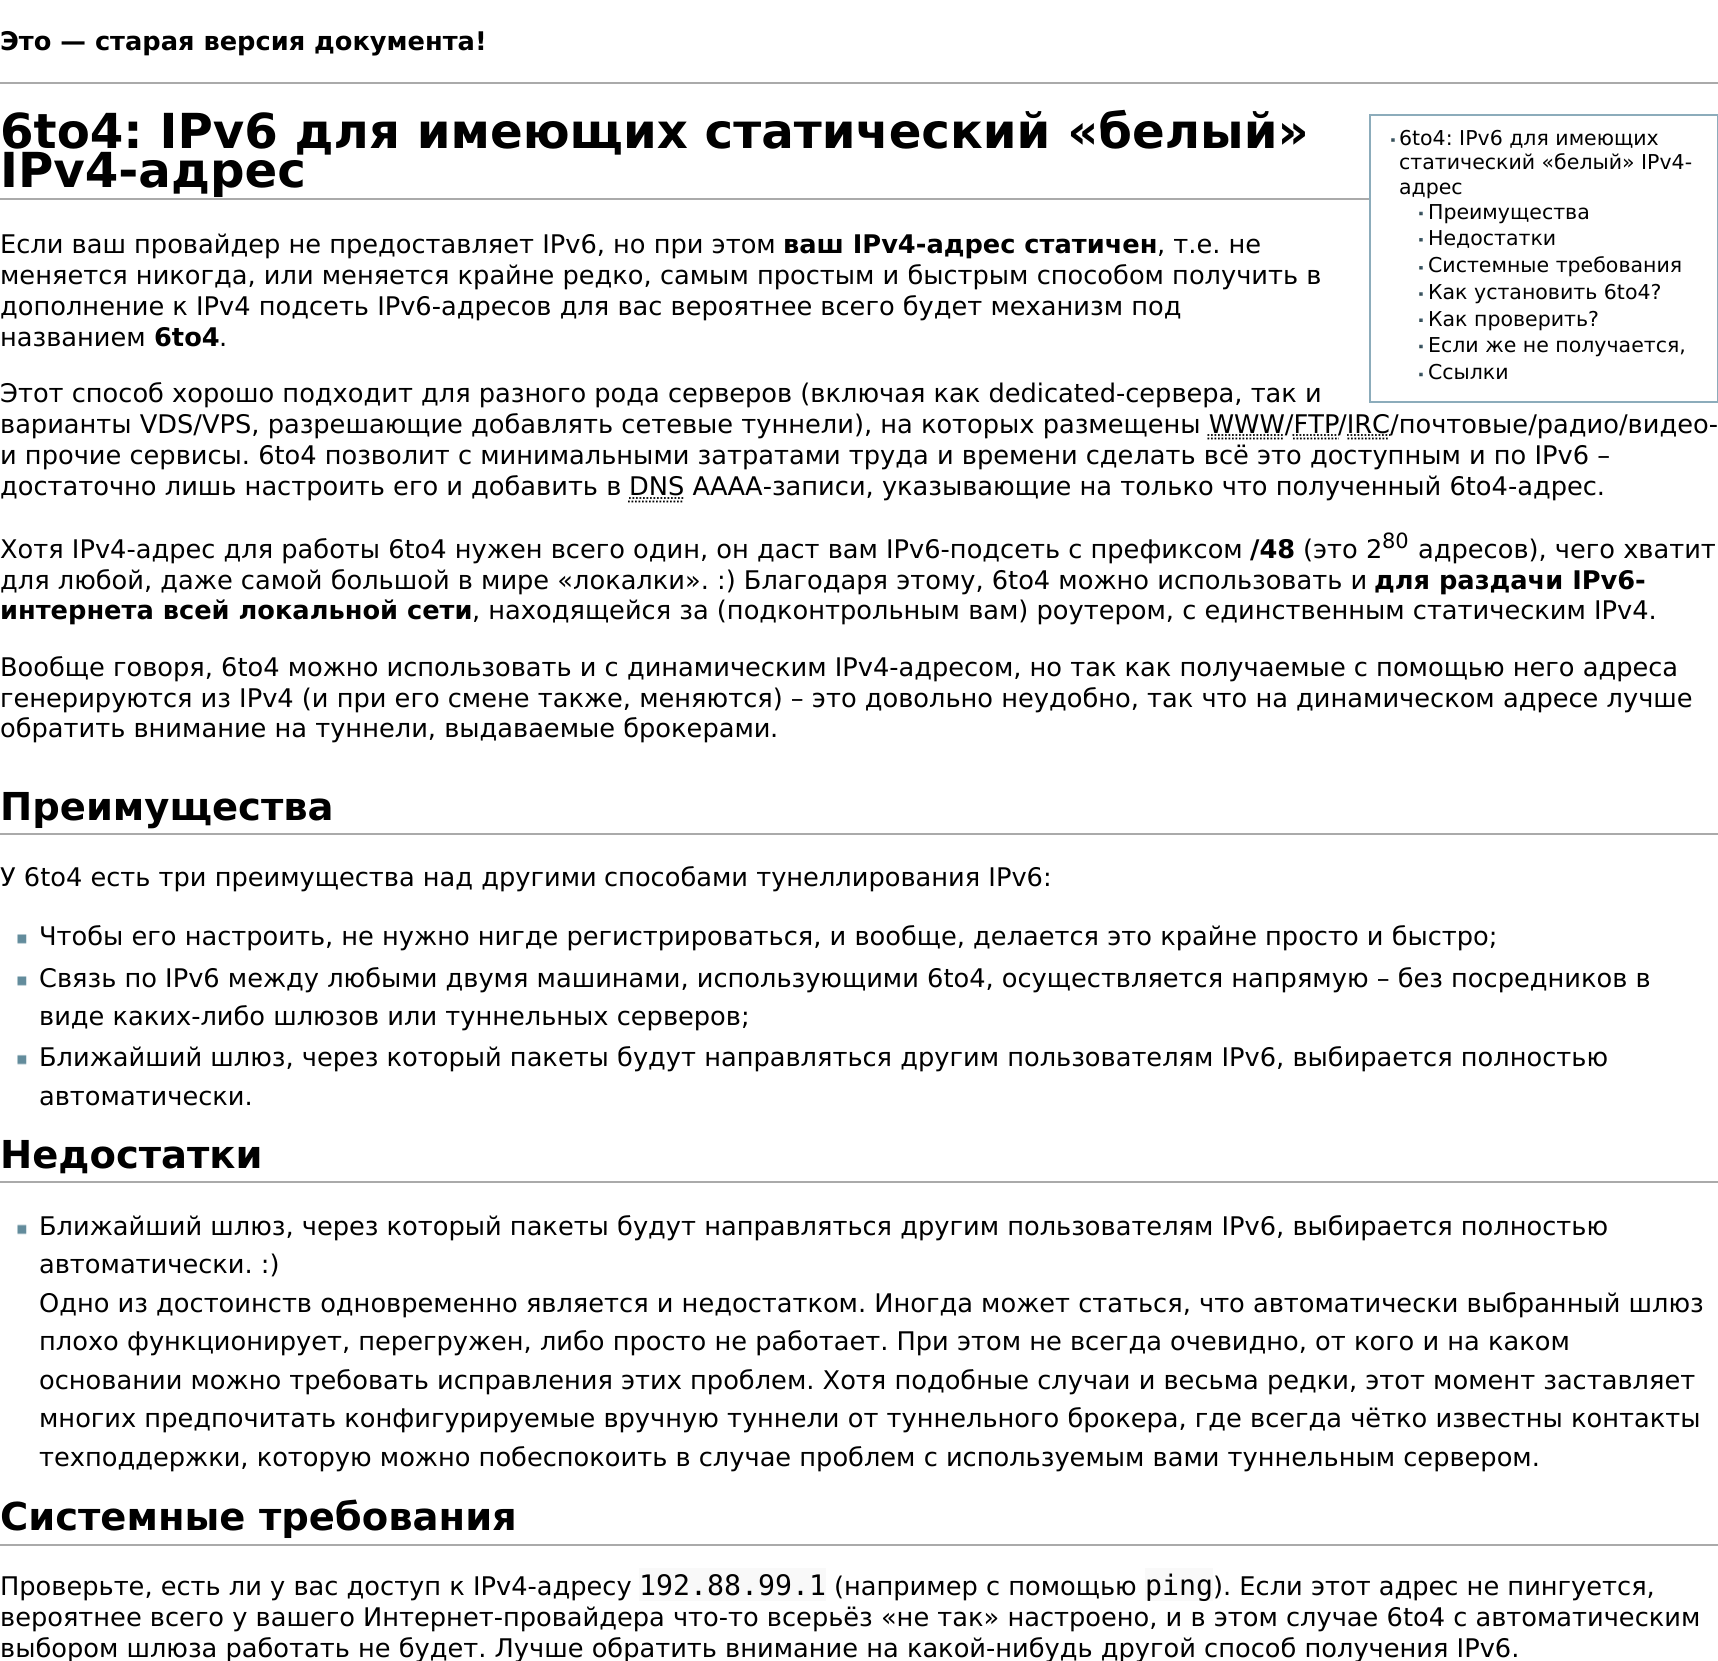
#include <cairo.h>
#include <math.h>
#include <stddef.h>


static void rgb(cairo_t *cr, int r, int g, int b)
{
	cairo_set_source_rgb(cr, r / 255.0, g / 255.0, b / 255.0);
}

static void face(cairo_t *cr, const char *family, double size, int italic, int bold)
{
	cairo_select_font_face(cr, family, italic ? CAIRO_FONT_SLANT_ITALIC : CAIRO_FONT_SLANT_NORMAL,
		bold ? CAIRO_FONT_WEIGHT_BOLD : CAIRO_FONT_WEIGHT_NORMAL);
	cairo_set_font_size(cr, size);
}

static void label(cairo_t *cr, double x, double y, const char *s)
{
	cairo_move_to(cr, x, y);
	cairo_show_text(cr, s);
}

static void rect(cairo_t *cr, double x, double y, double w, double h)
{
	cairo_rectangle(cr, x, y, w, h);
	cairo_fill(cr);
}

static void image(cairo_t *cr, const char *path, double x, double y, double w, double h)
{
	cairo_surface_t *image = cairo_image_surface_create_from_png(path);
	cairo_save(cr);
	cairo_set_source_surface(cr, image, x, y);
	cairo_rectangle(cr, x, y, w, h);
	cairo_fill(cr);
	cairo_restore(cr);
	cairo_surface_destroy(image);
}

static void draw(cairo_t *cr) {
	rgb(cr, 255, 255, 255);
	cairo_paint(cr);
	face(cr, "DejaVu Sans", 25.67, 0, 1);
	rgb(cr, 0, 0, 0);
	label(cr, 0, 50, "Это — старая версия документа!");
	rgb(cr, 170, 170, 170);
	rect(cr, 0, 82, 1718, 2);
	rect(cr, 0, 198, 1369, 2);
	face(cr, "DejaVu Sans", 48.25, 0, 1);
	rgb(cr, 0, 0, 0);
	label(cr, 0, 148, "6to4: IPv6 для имеющих статический «белый»");
	label(cr, 0, 187, "IPv4-адрес");
	cairo_rectangle(cr, 1370, 115, 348, 287);
	rgb(cr, 140, 172, 187);
	cairo_stroke(cr);
	image(cr, "image0.png", 1391, 138, 4, 4);
	face(cr, "DejaVu Sans", 20.5, 0, 0);
	rgb(cr, 0, 0, 0);
	label(cr, 1399, 145, "6to4: IPv6 для имеющих");
	label(cr, 1399, 169, "статический «белый» IPv4-");
	label(cr, 1399, 194, "адрес");
	image(cr, "image1.png", 1419, 211, 4, 5);
	label(cr, 1428, 219, "Преимущества");
	image(cr, "image2.png", 1419, 238, 4, 4);
	label(cr, 1428, 245, "Недостатки");
	image(cr, "image2.png", 1419, 266, 4, 4);
	label(cr, 1428, 272, "Системные требования");
	image(cr, "image0.png", 1419, 292, 4, 4);
	label(cr, 1428, 299, "Как установить 6to4?");
	image(cr, "image3.png", 1419, 318, 4, 4);
	label(cr, 1428, 326, "Как проверить?");
	image(cr, "image1.png", 1419, 344, 4, 5);
	label(cr, 1428, 352, "Если же не получается,");
	image(cr, "image1.png", 1419, 372, 4, 5);
	label(cr, 1428, 379, "Ссылки");
	face(cr, "DejaVu Sans", 25.67, 0, 0);
	label(cr, 0, 253, "Если ваш провайдер не предоставляет IPv6, но при этом");
	face(cr, "DejaVu Sans", 25.67, 0, 1);
	label(cr, 783, 253, "ваш IPv4-адрес статичен");
	face(cr, "DejaVu Sans", 25.67, 0, 0);
	label(cr, 1157, 253, ", т.е. не");
	label(cr, 0, 284, "меняется никогда, или меняется крайне редко, самым простым и быстрым способом получить в");
	label(cr, 0, 315, "дополнение к IPv4 подсеть IPv6-адресов для вас вероятнее всего будет механизм под");
	label(cr, 0, 346, "названием");
	face(cr, "DejaVu Sans", 25.67, 0, 1);
	label(cr, 154, 346, "6to4");
	face(cr, "DejaVu Sans", 25.67, 0, 0);
	label(cr, 219, 346, ".");
	label(cr, 0, 402, "Этот способ хорошо подходит для разного рода серверов (включая как dedicated-сервера, так и");
	label(cr, 0, 433, "варианты VDS/VPS, разрешающие добавлять сетевые туннели), на которых размещены WWW/FTP");
	cairo_new_path(cr);
	cairo_move_to(cr, 1293, 438.5);
	cairo_line_to(cr, 1339, 438.5);
	cairo_move_to(cr, 1292.5, 435);
	cairo_line_to(cr, 1338.5, 435);
	cairo_set_line_width(cr, 1.8);
	cairo_set_dash(cr, (double[]){1.75, 1.75}, 2, 0);
	cairo_stroke(cr);
	label(cr, 1338, 433, "/IRC");
	cairo_new_path(cr);
	cairo_move_to(cr, 1347.5, 438.5);
	cairo_line_to(cr, 1389.5, 438.5);
	cairo_move_to(cr, 1347, 435);
	cairo_line_to(cr, 1390.5, 435);
	cairo_stroke(cr);
	label(cr, 1390, 433, "/почтовые/радио/видео-");
	cairo_new_path(cr);
	cairo_move_to(cr, 1207.5, 435);
	cairo_line_to(cr, 1284, 435);
	cairo_stroke(cr);
	cairo_new_path(cr);
	cairo_move_to(cr, 1207.5, 438.5);
	cairo_line_to(cr, 1284.5, 438.5);
	cairo_stroke(cr);
	label(cr, 0, 464, "и прочие сервисы. 6to4 позволит с минимальными затратами труда и времени сделать всё это доступным и по IPv6 –");
	label(cr, 0, 495, "достаточно лишь настроить его и добавить в");
	cairo_new_path(cr);
	cairo_move_to(cr, 628, 501.5);
	cairo_line_to(cr, 684, 501.5);
	cairo_move_to(cr, 629, 498);
	cairo_line_to(cr, 684, 498);
	cairo_stroke(cr);
	label(cr, 629, 495, "DNS AAAA-записи, указывающие на только что полученный 6to4-адрес.");
	label(cr, 0, 558, "Хотя IPv4-адрес для работы 6to4 нужен всего один, он даст вам IPv6-подсеть с префиксом");
	face(cr, "DejaVu Sans", 25.67, 0, 1);
	label(cr, 1250, 558, "/48");
	face(cr, "DejaVu Sans", 25.67, 0, 0);
	label(cr, 1303, 558, "(это 2");
	face(cr, "DejaVu Sans", 21, 0, 0);
	label(cr, 1382, 548, "80");
	face(cr, "DejaVu Sans", 25.67, 0, 0);
	label(cr, 1418, 558, "адресов), чего хватит");
	label(cr, 0, 589, "для любой, даже самой большой в мире «локалки». :) Благодаря этому, 6to4 можно использовать и");
	face(cr, "DejaVu Sans", 25.67, 0, 1);
	label(cr, 1374, 589, "для раздачи IPv6-");
	label(cr, 0, 619, "интернета всей локальной сети");
	face(cr, "DejaVu Sans", 25.67, 0, 0);
	label(cr, 472, 619, ", находящейся за (подконтрольным вам) роутером, с единственным статическим IPv4.");
	label(cr, 0, 676, "Вообще говоря, 6to4 можно использовать и с динамическим IPv4-адресом, но так как получаемые с помощью него адреса");
	label(cr, 0, 707, "генерируются из IPv4 (и при его смене также, меняются) – это довольно неудобно, так что на динамическом адресе лучше");
	label(cr, 0, 737, "обратить внимание на туннели, выдаваемые брокерами");
	label(cr, 770, 737, ".");
	rgb(cr, 170, 170, 170);
	rect(cr, 0, 833, 1718, 2);
	face(cr, "DejaVu Sans", 38.5, 0, 1);
	rgb(cr, 0, 0, 0);
	label(cr, 0, 820, "Преимущества");
	face(cr, "DejaVu Sans", 25.67, 0, 0);
	label(cr, 0, 886, "У 6to4 есть три преимущества над другими");
	label(cr, 604, 886, "способами тунеллирования IPv6:");
	image(cr, "image4.png", 17, 934, 10, 10);
	label(cr, 39, 945, "Чтобы его настроить, не нужно нигде регистрироваться, и вообще, делается это крайне просто и быстро;");
	image(cr, "image4.png", 17, 976, 10, 10);
	label(cr, 39, 987, "Связь по IPv6 между любыми двумя машинами, использующими 6to4, осуществляется напрямую – без посредников в");
	label(cr, 39, 1025, "виде каких-либо шлюзов или туннельных серверов;");
	image(cr, "image5.png", 17, 1054, 10, 11);
	label(cr, 39, 1066, "Ближайший шлюз, через который пакеты будут направляться другим пользователям IPv6, выбирается полностью");
	label(cr, 39, 1105, "автоматически.");
	rgb(cr, 170, 170, 170);
	rect(cr, 0, 1181, 1718, 2);
	face(cr, "DejaVu Sans", 38.5, 0, 1);
	rgb(cr, 0, 0, 0);
	label(cr, 0, 1168, "Недостатки");
	image(cr, "image6.png", 17, 1224, 10, 11);
	face(cr, "DejaVu Sans", 25.67, 0, 0);
	label(cr, 39, 1235, "Ближайший шлюз, через который пакеты будут направляться другим пользователям IPv6, выбирается полностью");
	label(cr, 39, 1273, "автоматически. :)");
	label(cr, 39, 1312, "Одно из достоинств одновременно является и недостатком. Иногда может статься, что автоматически выбранный шлюз");
	label(cr, 39, 1350, "плохо функционирует, перегружен, либо просто не работает. При этом не всегда очевидно, от кого и на каком");
	label(cr, 39, 1389, "основании можно требовать исправления этих проблем. Хотя подобные случаи и весьма редки, этот момент заставляет");
	label(cr, 39, 1427, "многих предпочитать конфигурируемые вручную туннели от туннельного брокера, где всегда чётко известны контакты");
	label(cr, 39, 1466, "техподдержки, которую можно побеспокоить в случае проблем с используемым вами туннельным сервером.");
	rgb(cr, 170, 170, 170);
	rect(cr, 0, 1544, 1718, 2);
	face(cr, "DejaVu Sans", 38.5, 0, 1);
	rgb(cr, 0, 0, 0);
	label(cr, 0, 1530, "Системные требования");
	face(cr, "DejaVu Sans", 25.67, 0, 0);
	label(cr, 0, 1595, "Проверьте, есть ли у вас доступ к IPv4-адресу");
	rgb(cr, 249, 249, 249);
	rect(cr, 639, 1568, 187, 33);
	face(cr, "DejaVu Sans Mono", 28.25, 0, 0);
	rgb(cr, 0, 0, 0);
	label(cr, 639, 1595, "192.88.99.1");
	face(cr, "DejaVu Sans", 25.67, 0, 0);
	label(cr, 834, 1595, "(например с помощью");
	rgb(cr, 249, 249, 249);
	rect(cr, 1145, 1568, 68, 33);
	face(cr, "DejaVu Sans Mono", 28.25, 0, 0);
	rgb(cr, 0, 0, 0);
	label(cr, 1145, 1595, "ping");
	face(cr, "DejaVu Sans", 25.67, 0, 0);
	label(cr, 1213, 1595, "). Если этот адрес не пингуется,");
	label(cr, 0, 1626, "вероятнее всего у вашего Интернет-провайдера что-то всерьёз «не так» настроено, и в этом случае 6to4 с автоматическим");
	label(cr, 0, 1657, "выбором шлюза работать не будет. Лучше обратить внимание на какой-нибудь другой способ получения IPv6.");
}

int main(void) {
	cairo_surface_t *surface = cairo_image_surface_create(CAIRO_FORMAT_RGB24, 1718, 1661);
	cairo_t *cr = cairo_create(surface);
	cairo_font_options_t *options = cairo_font_options_create();
	cairo_font_options_set_hint_metrics(options, CAIRO_HINT_METRICS_OFF);
	cairo_font_options_set_hint_style(options, CAIRO_HINT_STYLE_NONE);
	cairo_set_font_options(cr, options);
	cairo_set_miter_limit(cr, 4);
	draw(cr);
	cairo_surface_write_to_png(surface, "render.png");
	cairo_font_options_destroy(options);
	cairo_destroy(cr);
	cairo_surface_destroy(surface);
	return 0;
}
